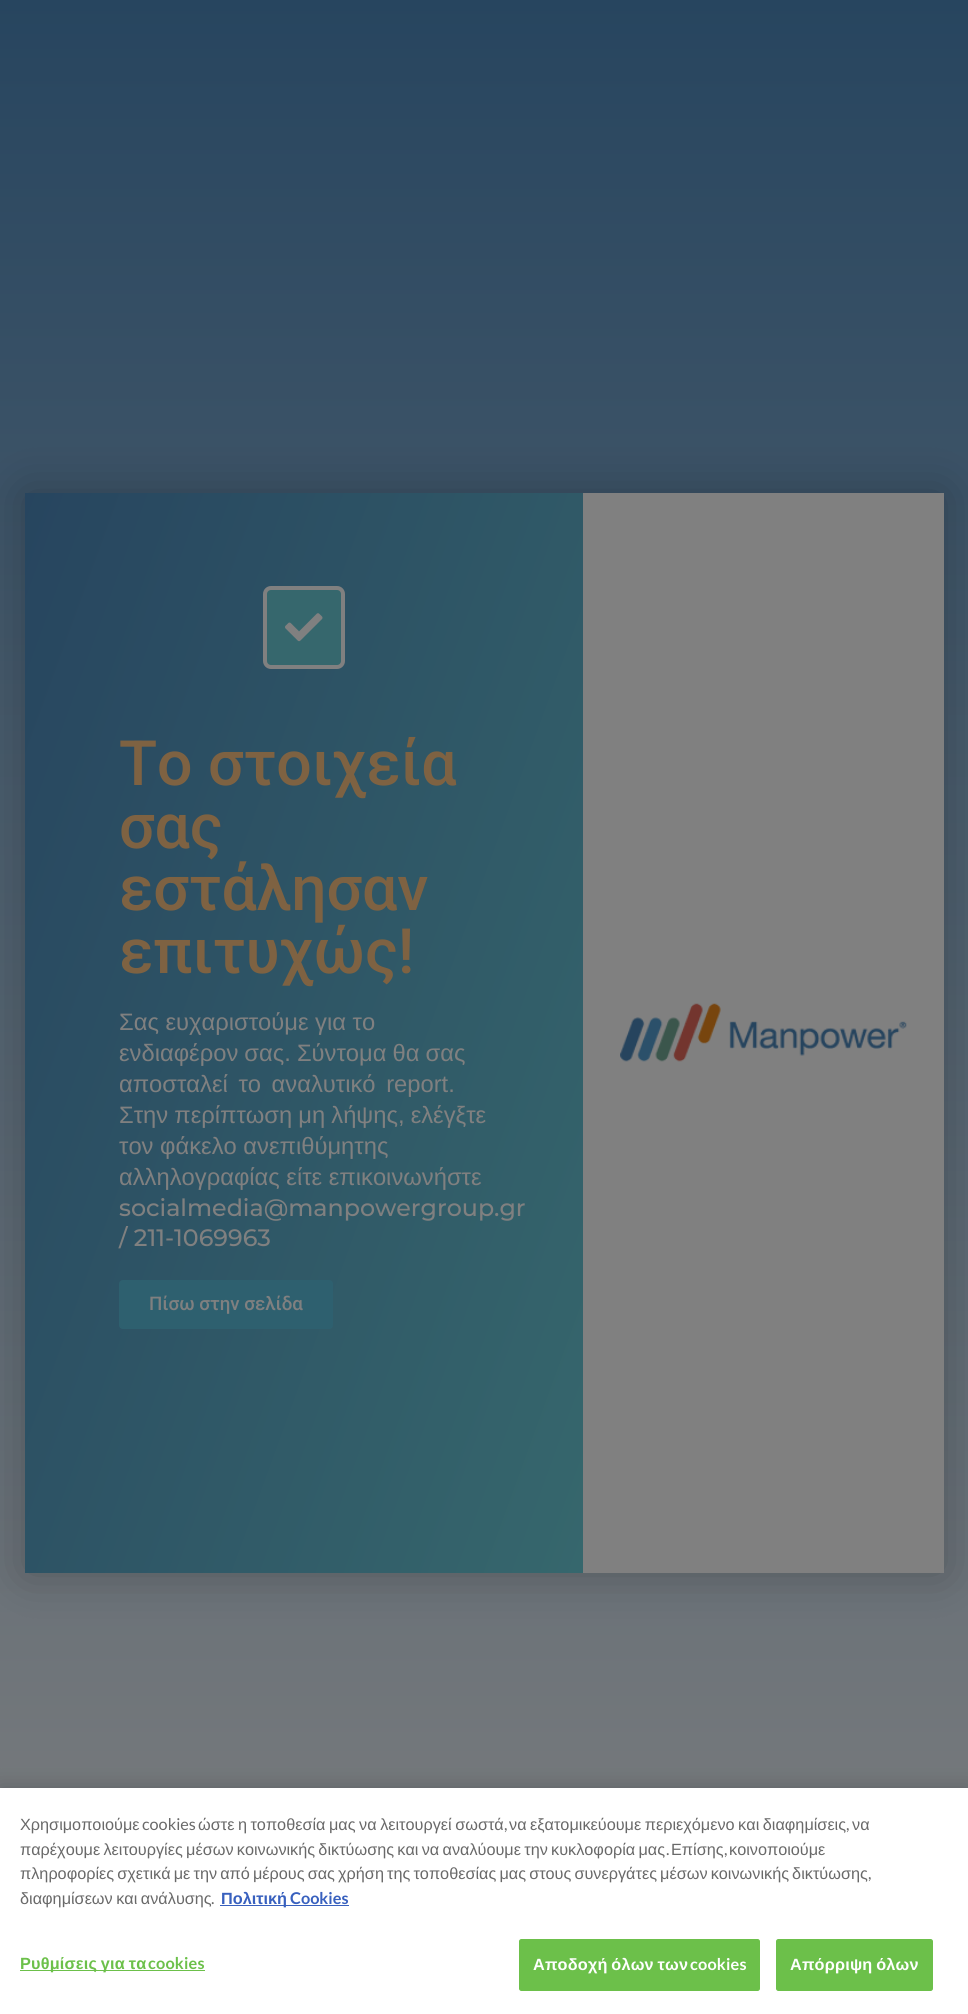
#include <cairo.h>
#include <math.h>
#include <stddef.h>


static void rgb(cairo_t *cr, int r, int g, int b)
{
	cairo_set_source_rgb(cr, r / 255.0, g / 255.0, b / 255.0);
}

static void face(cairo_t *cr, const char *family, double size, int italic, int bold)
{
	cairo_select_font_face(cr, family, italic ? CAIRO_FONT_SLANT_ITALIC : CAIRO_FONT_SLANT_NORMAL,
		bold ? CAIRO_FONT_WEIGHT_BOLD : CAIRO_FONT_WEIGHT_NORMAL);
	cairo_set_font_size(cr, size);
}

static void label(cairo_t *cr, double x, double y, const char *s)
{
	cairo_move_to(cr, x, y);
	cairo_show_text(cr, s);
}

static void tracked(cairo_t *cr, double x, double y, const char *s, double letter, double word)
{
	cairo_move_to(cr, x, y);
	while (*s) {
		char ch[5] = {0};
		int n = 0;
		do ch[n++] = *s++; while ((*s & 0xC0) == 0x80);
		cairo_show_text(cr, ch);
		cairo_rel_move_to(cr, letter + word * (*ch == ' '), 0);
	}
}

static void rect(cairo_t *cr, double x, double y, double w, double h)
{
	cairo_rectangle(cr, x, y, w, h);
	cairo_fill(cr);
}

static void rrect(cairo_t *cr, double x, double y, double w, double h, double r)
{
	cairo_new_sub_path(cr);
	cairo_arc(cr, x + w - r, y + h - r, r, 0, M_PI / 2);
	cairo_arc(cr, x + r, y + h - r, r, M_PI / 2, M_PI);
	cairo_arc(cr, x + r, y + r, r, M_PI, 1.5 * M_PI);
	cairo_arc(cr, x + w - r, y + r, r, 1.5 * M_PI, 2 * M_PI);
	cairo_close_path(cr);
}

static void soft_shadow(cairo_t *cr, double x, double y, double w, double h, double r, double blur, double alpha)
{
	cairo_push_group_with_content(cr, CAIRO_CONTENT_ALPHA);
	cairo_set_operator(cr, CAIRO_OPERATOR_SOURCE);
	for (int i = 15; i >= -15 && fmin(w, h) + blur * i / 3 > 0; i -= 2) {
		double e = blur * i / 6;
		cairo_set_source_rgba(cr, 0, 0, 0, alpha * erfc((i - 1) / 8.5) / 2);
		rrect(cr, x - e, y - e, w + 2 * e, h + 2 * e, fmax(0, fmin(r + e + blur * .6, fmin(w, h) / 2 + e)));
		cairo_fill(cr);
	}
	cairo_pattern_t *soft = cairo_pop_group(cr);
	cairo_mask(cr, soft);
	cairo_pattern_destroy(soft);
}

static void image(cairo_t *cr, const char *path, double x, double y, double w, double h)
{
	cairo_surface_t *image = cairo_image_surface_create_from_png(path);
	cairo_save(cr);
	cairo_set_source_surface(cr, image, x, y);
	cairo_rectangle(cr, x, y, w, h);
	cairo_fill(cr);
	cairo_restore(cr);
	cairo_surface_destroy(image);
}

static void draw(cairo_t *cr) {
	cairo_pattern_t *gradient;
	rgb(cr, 255, 255, 255);
	cairo_paint(cr);
	gradient = cairo_pattern_create_linear(484, 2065, 484, 0);
	cairo_pattern_add_color_stop_rgba(gradient, 0, 0.502, 0.502, 0.502, 1);
	cairo_pattern_add_color_stop_rgba(gradient, 1, 0.153, 0.271, 0.373, 1);
	cairo_set_source(cr, gradient);
	cairo_pattern_destroy(gradient);
	rect(cr, 0, 0, 968, 1788);
	rgb(cr, 0, 0, 0);
	soft_shadow(cr, 25, 493, 919, 1080, 0, 25, 0.24);
	gradient = cairo_pattern_create_linear(723, 1185, -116, 880);
	cairo_pattern_add_color_stop_rgba(gradient, 0, 0.212, 0.404, 0.427, 1);
	cairo_pattern_add_color_stop_rgba(gradient, 1, 0.153, 0.271, 0.373, 1);
	cairo_set_source(cr, gradient);
	cairo_pattern_destroy(gradient);
	rect(cr, 25, 493, 558, 1080);
	rgb(cr, 54, 103, 109);
	rrect(cr, 265, 588, 78, 79, 6);
	cairo_fill_preserve(cr);
	rgb(cr, 128, 128, 128);
	cairo_set_line_width(cr, 4);
	cairo_stroke(cr);
	image(cr, "image0.png", 285, 613, 38, 29);
	face(cr, "Roboto Medium", 62.5, 0, 0);
	rgb(cr, 126, 98, 66);
	label(cr, 119, 785, "Το στοιχεία");
	label(cr, 119, 848, "σας");
	label(cr, 119, 910, "εστάλησαν");
	label(cr, 119, 973, "επιτυχώς!");
	face(cr, "Liberation Sans", 23.75, 0, 0);
	rgb(cr, 128, 128, 128);
	label(cr, 119, 1030, "Σας ευχαριστούμε για το");
	tracked(cr, 119, 1061, "ενδιαφέρον σας. Σύντομα θα σας", 0, -0.5);
	tracked(cr, 119, 1092, "αποσταλεί το αναλυτικό report.", 0, 4);
	tracked(cr, 119, 1123, "Στην περίπτωση μη λήψης, ελέγξτε", 0, -0.5);
	label(cr, 119, 1154, "τον φάκελο ανεπιθύμητης");
	label(cr, 119, 1185, "αλληλογραφίας είτε επικοινωνήστε");
	face(cr, "Montserrat Medium", 23.75, 0, 0);
	label(cr, 119, 1216, "socialmedia@manpowergroup.gr");
	label(cr, 119, 1246, "/ 211-1069963");
	rgb(cr, 46, 96, 111);
	rrect(cr, 119, 1280, 214, 49, 4);
	cairo_fill(cr);
	face(cr, "Roboto Medium", 18.75, 0, 0);
	rgb(cr, 128, 128, 128);
	label(cr, 149, 1310, "Πίσω στην σελίδα");
	rect(cr, 583, 493, 361, 1080);
	image(cr, "image1.png", 620, 1003, 287, 59);
	rgb(cr, 0, 0, 0);
	soft_shadow(cr, 0, 1788, 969, 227, 0, 11, 0.2);
	rgb(cr, 255, 255, 255);
	rect(cr, 0, 1788, 968, 226);
	face(cr, "Liberation Sans", 16.25, 0, 0);
	rgb(cr, 105, 105, 105);
	label(cr, 20, 1830, "Χρησιμοποιούμε");
	face(cr, "Lato", 16.25, 0, 0);
	label(cr, 142, 1830, "cookies");
	face(cr, "Liberation Sans", 16.25, 0, 0);
	tracked(cr, 198, 1830, "ώστε η τοποθεσία μας να λειτουργεί σωστά", 0, -1);
	face(cr, "Lato", 16.25, 0, 0);
	label(cr, 504, 1830, ",");
	face(cr, "Liberation Sans", 16.25, 0, 0);
	tracked(cr, 509, 1830, "να εξατομικεύουμε περιεχόμενο και διαφημίσεις", 0, -1);
	face(cr, "Lato", 16.25, 0, 0);
	label(cr, 846, 1830, ",");
	face(cr, "Liberation Sans", 16.25, 0, 0);
	label(cr, 852, 1830, "να");
	tracked(cr, 20, 1855, "παρέχουμε λειτουργίες μέσων κοινωνικής δικτύωσης και να αναλύουμε την κυκλοφορία μας", 0, -1.25);
	face(cr, "Lato", 16.25, 0, 0);
	label(cr, 666, 1855, ".");
	face(cr, "Liberation Sans", 16.25, 0, 0);
	label(cr, 671, 1855, "Επίσης");
	face(cr, "Lato", 16.25, 0, 0);
	label(cr, 724, 1855, ",");
	face(cr, "Liberation Sans", 16.25, 0, 0);
	label(cr, 729, 1855, "κοινοποιούμε");
	tracked(cr, 20, 1879, "πληροφορίες σχετικά με την από μέρους σας χρήση της τοποθεσίας μας στους συνεργάτες μέσων κοινωνικής δικτύωσης", 0, -1.4);
	face(cr, "Lato", 16.25, 0, 0);
	label(cr, 868, 1879, ",");
	face(cr, "Liberation Sans", 16.25, 0, 0);
	tracked(cr, 20, 1904, "διαφημίσεων και ανάλυσης", 0, -1);
	face(cr, "Lato", 16.25, 0, 0);
	label(cr, 211, 1904, ".");
	rgb(cr, 56, 96, 190);
	rect(cr, 220, 1905, 129, 1);
	face(cr, "Liberation Sans", 16.25, 0, 1);
	label(cr, 221, 1904, "Πολιτική");
	face(cr, "Lato", 16.25, 0, 1);
	label(cr, 290, 1904, "Cookies");
	rgb(cr, 108, 192, 74);
	rect(cr, 20, 1970, 185, 1);
	face(cr, "Liberation Sans", 16.25, 0, 1);
	tracked(cr, 20, 1969, "Ρυθμίσεις για τα", 0.2, -1);
	face(cr, "Lato", 16.25, 0, 1);
	tracked(cr, 148, 1969, "cookies", 0.2, 0);
	rrect(cr, 519.5, 1939.5, 240, 51, 2);
	cairo_fill_preserve(cr);
	cairo_set_line_width(cr, 1);
	cairo_stroke(cr);
	face(cr, "Liberation Sans", 16.25, 0, 1);
	rgb(cr, 255, 255, 255);
	tracked(cr, 533, 1970, "Αποδοχή όλων των", 0.2, -1);
	face(cr, "Lato", 16.25, 0, 1);
	tracked(cr, 690, 1970, "cookies", 0.2, 0);
	rgb(cr, 108, 192, 74);
	rrect(cr, 776.5, 1939.5, 156, 51, 2);
	cairo_fill_preserve(cr);
	cairo_stroke(cr);
	face(cr, "Liberation Sans", 16.25, 0, 1);
	rgb(cr, 255, 255, 255);
	tracked(cr, 790, 1970, "Απόρριψη όλων", 0.2, -1);
}

int main(void) {
	cairo_surface_t *surface = cairo_image_surface_create(CAIRO_FORMAT_RGB24, 968, 2014);
	cairo_t *cr = cairo_create(surface);
	cairo_font_options_t *options = cairo_font_options_create();
	cairo_font_options_set_hint_metrics(options, CAIRO_HINT_METRICS_OFF);
	cairo_font_options_set_hint_style(options, CAIRO_HINT_STYLE_NONE);
	cairo_set_font_options(cr, options);
	cairo_set_miter_limit(cr, 4);
	draw(cr);
	cairo_surface_write_to_png(surface, "render.png");
	cairo_font_options_destroy(options);
	cairo_destroy(cr);
	cairo_surface_destroy(surface);
	return 0;
}
